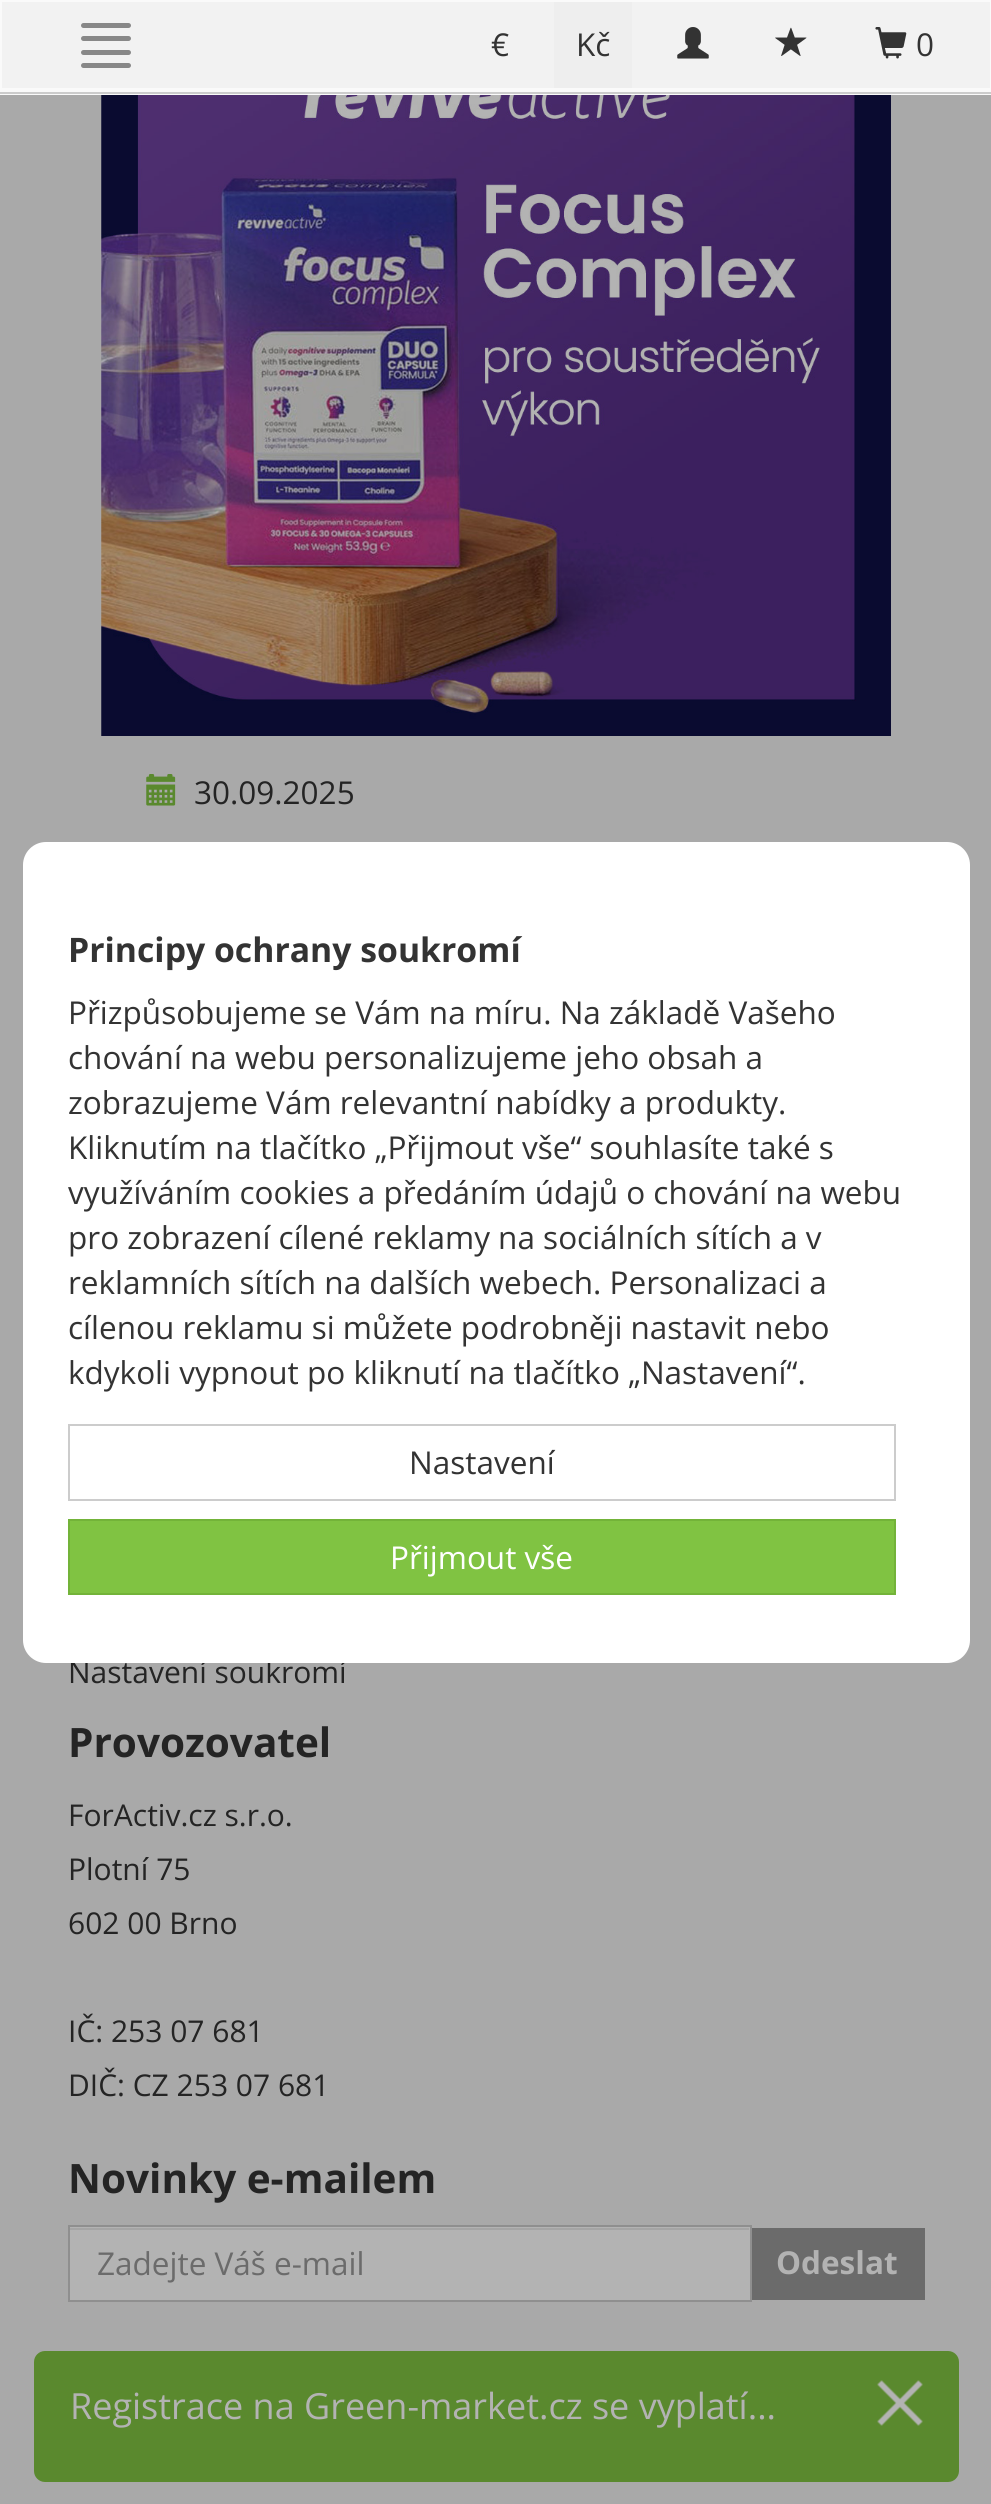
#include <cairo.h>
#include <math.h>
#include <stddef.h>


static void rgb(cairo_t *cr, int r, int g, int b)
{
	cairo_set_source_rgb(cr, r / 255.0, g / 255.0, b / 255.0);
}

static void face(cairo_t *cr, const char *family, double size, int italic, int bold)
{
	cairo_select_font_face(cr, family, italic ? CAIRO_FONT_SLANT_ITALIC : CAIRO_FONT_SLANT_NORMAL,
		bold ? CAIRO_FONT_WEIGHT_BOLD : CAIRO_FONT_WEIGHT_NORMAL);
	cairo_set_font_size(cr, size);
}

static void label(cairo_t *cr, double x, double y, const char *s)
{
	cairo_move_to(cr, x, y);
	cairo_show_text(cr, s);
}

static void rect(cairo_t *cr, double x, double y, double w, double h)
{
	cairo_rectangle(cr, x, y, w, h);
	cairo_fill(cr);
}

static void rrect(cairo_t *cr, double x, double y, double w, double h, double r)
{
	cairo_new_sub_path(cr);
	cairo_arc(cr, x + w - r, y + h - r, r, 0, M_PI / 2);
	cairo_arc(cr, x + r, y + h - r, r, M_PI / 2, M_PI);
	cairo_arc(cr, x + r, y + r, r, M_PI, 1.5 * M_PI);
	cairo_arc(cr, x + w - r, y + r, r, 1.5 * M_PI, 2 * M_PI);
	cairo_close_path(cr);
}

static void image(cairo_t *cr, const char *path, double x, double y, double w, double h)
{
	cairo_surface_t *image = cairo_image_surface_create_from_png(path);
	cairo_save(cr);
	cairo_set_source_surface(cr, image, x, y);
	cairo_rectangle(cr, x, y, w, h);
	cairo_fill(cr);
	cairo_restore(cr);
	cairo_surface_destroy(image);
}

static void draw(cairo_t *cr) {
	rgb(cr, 169, 169, 169);
	cairo_paint(cr);
	rgb(cr, 250, 250, 250);
	rect(cr, 0, 0, 991, 95);
	rgb(cr, 242, 242, 242);
	rect(cr, 2, 2, 988, 86);
	rgb(cr, 136, 136, 136);
	rrect(cr, 81, 23, 50, 5, 2.5);
	cairo_fill(cr);
	rrect(cr, 81, 36, 50, 5, 2.5);
	cairo_fill(cr);
	rrect(cr, 81, 50, 50, 5, 2.5);
	cairo_fill(cr);
	rrect(cr, 81, 63, 50, 5, 2.5);
	cairo_fill(cr);
	face(cr, "Open Sans", 31.5, 0, 0);
	rgb(cr, 51, 51, 51);
	label(cr, 491, 56, "€");
	rgb(cr, 238, 238, 238);
	rect(cr, 554, 2, 78, 86);
	rgb(cr, 51, 51, 51);
	label(cr, 576, 56, "Kč");
	image(cr, "image0.png", 677, 27, 32, 32);
	image(cr, "image1.png", 775, 27, 32, 29);
	image(cr, "image2.png", 875, 27, 32, 32);
	label(cr, 916, 56, "0");
	rgb(cr, 204, 204, 204);
	rect(cr, 0, 92, 991, 2);
	image(cr, "image3.png", 101, 95, 790, 641);
	image(cr, "image4.png", 146, 774, 30, 32);
	rgb(cr, 36, 36, 36);
	label(cr, 194, 804, "30.09.2025");
	face(cr, "Open Sans", 30, 0, 0);
	label(cr, 68, 1683, "Nastavení soukromí");
	rgb(cr, 255, 255, 255);
	rrect(cr, 23, 842, 947, 821, 23);
	cairo_fill(cr);
	face(cr, "Open Sans", 33.75, 0, 1);
	rgb(cr, 51, 51, 51);
	label(cr, 68, 962, "Principy ochrany soukromí");
	face(cr, "Open Sans", 31.5, 0, 0);
	label(cr, 68, 1024, "Přizpůsobujeme se Vám na míru. Na základě Vašeho");
	label(cr, 68, 1069, "chování na webu personalizujeme jeho obsah a");
	label(cr, 68, 1114, "zobrazujeme Vám relevantní nabídky a produkty.");
	label(cr, 68, 1159, "Kliknutím na tlačítko „Přijmout vše“ souhlasíte také s");
	label(cr, 68, 1204, "využíváním cookies a předáním údajů o chování na webu");
	label(cr, 68, 1249, "pro zobrazení cílené reklamy na sociálních sítích a v");
	label(cr, 68, 1294, "reklamních sítích na dalších webech. Personalizaci a");
	label(cr, 68, 1339, "cílenou reklamu si můžete podrobněji nastavit nebo");
	label(cr, 68, 1384, "kdykoli vypnout po kliknutí na tlačítko „Nastavení“.");
	cairo_rectangle(cr, 69, 1425, 826, 75);
	rgb(cr, 204, 204, 204);
	cairo_stroke(cr);
	rgb(cr, 51, 51, 51);
	label(cr, 409, 1474, "Nastavení");
	rgb(cr, 128, 195, 66);
	cairo_rectangle(cr, 69, 1520, 826, 74);
	cairo_fill_preserve(cr);
	rgb(cr, 115, 179, 57);
	cairo_stroke(cr);
	rgb(cr, 255, 255, 255);
	label(cr, 390, 1569, "Přijmout vše");
	face(cr, "Open Sans", 40.5, 0, 1);
	rgb(cr, 36, 36, 36);
	label(cr, 68, 1757, "Provozovatel");
	face(cr, "Open Sans", 30, 0, 0);
	label(cr, 68, 1826, "ForActiv.cz s.r.o.");
	label(cr, 68, 1880, "Plotní 75");
	label(cr, 68, 1934, "602 00 Brno");
	label(cr, 68, 2042, "IČ: 253 07 681");
	label(cr, 68, 2096, "DIČ: CZ 253 07 681");
	face(cr, "Open Sans", 40.5, 0, 1);
	label(cr, 68, 2193, "Novinky e-mailem");
	rgb(cr, 179, 179, 179);
	rect(cr, 70, 2227, 680, 73);
	rgb(cr, 165, 165, 165);
	rect(cr, 70, 2228, 679, 2);
	cairo_rectangle(cr, 69, 2226, 682, 75);
	rgb(cr, 143, 143, 143);
	cairo_stroke(cr);
	face(cr, "Open Sans", 31.5, 0, 0);
	rgb(cr, 107, 107, 107);
	label(cr, 97, 2275, "Zadejte Váš e-mail");
	rect(cr, 752, 2228, 173, 72);
	face(cr, "Open Sans", 31.5, 0, 1);
	rgb(cr, 179, 179, 179);
	label(cr, 776, 2274, "Odeslat");
	rgb(cr, 90, 137, 46);
	rrect(cr, 34, 2351, 925, 131, 11);
	cairo_fill(cr);
	face(cr, "Open Sans", 36, 0, 0);
	rgb(cr, 179, 179, 179);
	label(cr, 70, 2419, "Registrace na Green-market.cz se vyplatí...");
	image(cr, "image5.png", 877, 2380, 46, 46);
}

int main(void) {
	cairo_surface_t *surface = cairo_image_surface_create(CAIRO_FORMAT_RGB24, 991, 2504);
	cairo_t *cr = cairo_create(surface);
	cairo_font_options_t *options = cairo_font_options_create();
	cairo_font_options_set_hint_metrics(options, CAIRO_HINT_METRICS_OFF);
	cairo_font_options_set_hint_style(options, CAIRO_HINT_STYLE_NONE);
	cairo_set_font_options(cr, options);
	cairo_set_miter_limit(cr, 4);
	draw(cr);
	cairo_surface_write_to_png(surface, "render.png");
	cairo_font_options_destroy(options);
	cairo_destroy(cr);
	cairo_surface_destroy(surface);
	return 0;
}
